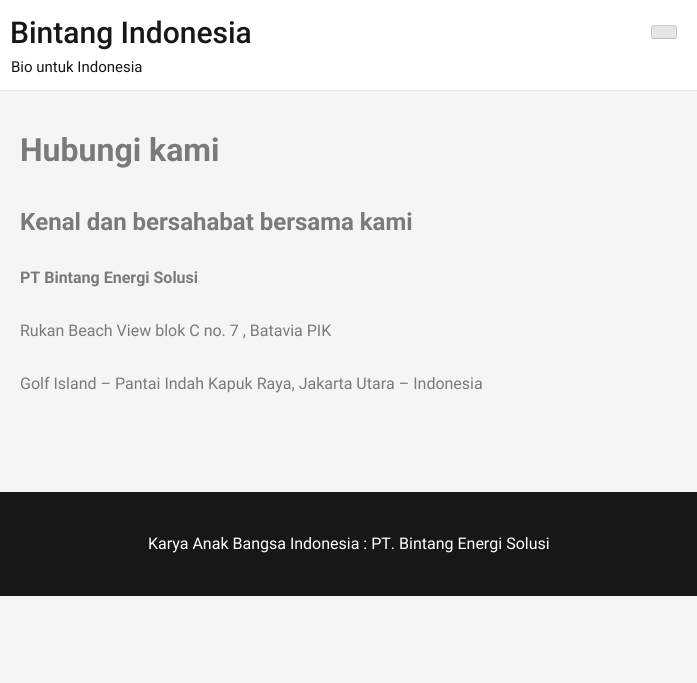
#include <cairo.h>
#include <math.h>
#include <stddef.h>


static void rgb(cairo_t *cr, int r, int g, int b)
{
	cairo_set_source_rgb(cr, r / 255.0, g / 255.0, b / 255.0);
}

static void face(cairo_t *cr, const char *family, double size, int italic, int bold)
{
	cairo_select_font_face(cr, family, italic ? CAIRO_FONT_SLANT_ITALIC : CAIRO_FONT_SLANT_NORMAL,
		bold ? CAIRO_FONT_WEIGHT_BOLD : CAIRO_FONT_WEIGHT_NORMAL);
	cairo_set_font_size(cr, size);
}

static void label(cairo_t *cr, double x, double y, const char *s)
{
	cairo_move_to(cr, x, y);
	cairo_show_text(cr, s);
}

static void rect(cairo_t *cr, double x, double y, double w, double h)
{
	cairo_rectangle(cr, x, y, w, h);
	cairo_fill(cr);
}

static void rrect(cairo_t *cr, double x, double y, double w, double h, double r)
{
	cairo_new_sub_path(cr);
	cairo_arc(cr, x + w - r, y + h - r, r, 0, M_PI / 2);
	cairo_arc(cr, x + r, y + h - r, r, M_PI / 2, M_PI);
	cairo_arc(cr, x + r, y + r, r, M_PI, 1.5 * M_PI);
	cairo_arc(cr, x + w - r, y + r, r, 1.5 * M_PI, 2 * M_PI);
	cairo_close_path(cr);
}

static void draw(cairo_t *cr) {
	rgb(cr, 245, 245, 245);
	cairo_paint(cr);
	rgb(cr, 255, 255, 255);
	rect(cr, 0, 0, 697, 90);
	rgb(cr, 234, 234, 234);
	rect(cr, 0, 90, 697, 1);
	face(cr, "Roboto Medium", 30, 0, 0);
	rgb(cr, 23, 23, 23);
	label(cr, 10, 43, "Bintang Indonesia");
	face(cr, "Roboto", 15, 0, 0);
	label(cr, 11, 72, "Bio untuk Indonesia");
	rgb(cr, 230, 230, 230);
	rrect(cr, 651, 25, 26, 14, 3);
	cairo_fill(cr);
	cairo_new_path(cr);
	cairo_move_to(cr, 676, 38);
	cairo_curve_to(cr, 675.5, 38, 674.5, 38.5, 674, 38.5);
	cairo_line_to(cr, 654, 38.5);
	cairo_curve_to(cr, 653.5, 38.5, 652.5, 38, 652, 38);
	rgb(cr, 187, 187, 187);
	cairo_set_line_width(cr, 1);
	cairo_stroke(cr);
	cairo_new_path(cr);
	cairo_move_to(cr, 652, 38);
	cairo_curve_to(cr, 651, 36.5, 651.5, 33.5, 651.5, 32);
	cairo_curve_to(cr, 651.5, 26, 651, 25.5, 657.5, 25.5);
	cairo_line_to(cr, 670.5, 25.5);
	cairo_curve_to(cr, 677, 25.5, 676.5, 26, 676.5, 32);
	cairo_curve_to(cr, 676.5, 33.5, 677, 36.5, 676, 38);
	rgb(cr, 204, 204, 204);
	cairo_stroke(cr);
	face(cr, "Roboto", 32, 0, 1);
	rgb(cr, 122, 122, 122);
	label(cr, 20, 161, "Hubungi kami");
	face(cr, "Roboto", 24, 0, 1);
	label(cr, 20, 230, "Kenal dan bersahabat bersama kami");
	face(cr, "Roboto", 16, 0, 1);
	label(cr, 20, 283, "PT Bintang Energi Solusi");
	face(cr, "Roboto", 16, 0, 0);
	label(cr, 20, 336, "Rukan Beach View blok C no. 7 , Batavia PIK");
	label(cr, 20, 389, "Golf Island – Pantai Indah Kapuk Raya, Jakarta Utara – Indonesia");
	rgb(cr, 23, 23, 23);
	rect(cr, 0, 492, 697, 104);
	rgb(cr, 255, 255, 255);
	label(cr, 148, 549, "Karya Anak Bangsa Indonesia : PT. Bintang Energi Solusi");
}

int main(void) {
	cairo_surface_t *surface = cairo_image_surface_create(CAIRO_FORMAT_RGB24, 697, 683);
	cairo_t *cr = cairo_create(surface);
	cairo_font_options_t *options = cairo_font_options_create();
	cairo_font_options_set_hint_metrics(options, CAIRO_HINT_METRICS_OFF);
	cairo_font_options_set_hint_style(options, CAIRO_HINT_STYLE_NONE);
	cairo_set_font_options(cr, options);
	cairo_set_miter_limit(cr, 4);
	draw(cr);
	cairo_surface_write_to_png(surface, "render.png");
	cairo_font_options_destroy(options);
	cairo_destroy(cr);
	cairo_surface_destroy(surface);
	return 0;
}
